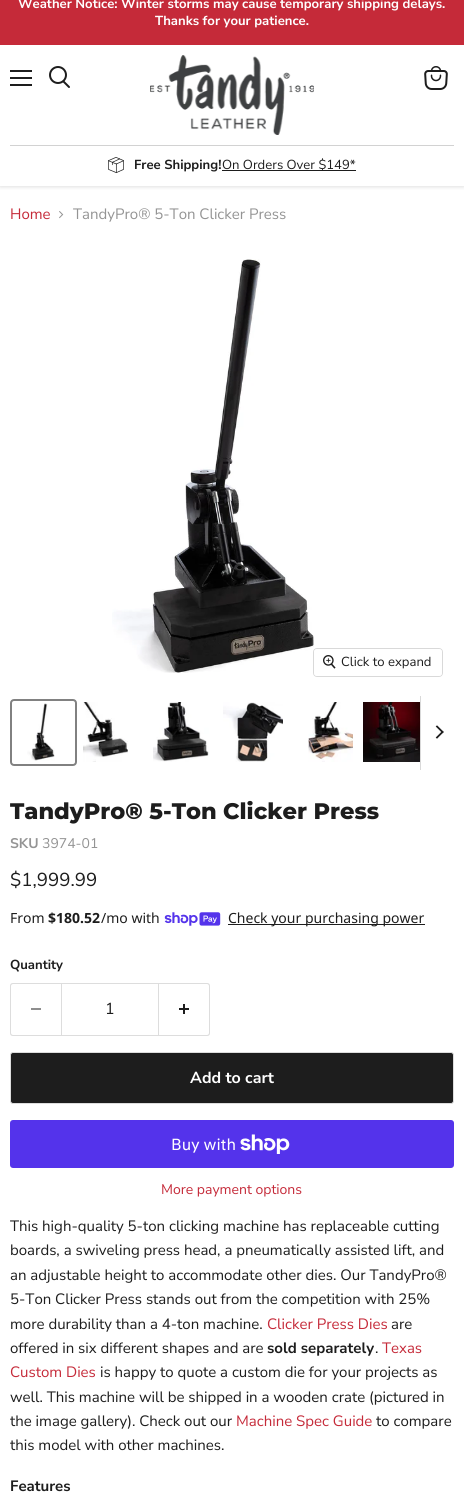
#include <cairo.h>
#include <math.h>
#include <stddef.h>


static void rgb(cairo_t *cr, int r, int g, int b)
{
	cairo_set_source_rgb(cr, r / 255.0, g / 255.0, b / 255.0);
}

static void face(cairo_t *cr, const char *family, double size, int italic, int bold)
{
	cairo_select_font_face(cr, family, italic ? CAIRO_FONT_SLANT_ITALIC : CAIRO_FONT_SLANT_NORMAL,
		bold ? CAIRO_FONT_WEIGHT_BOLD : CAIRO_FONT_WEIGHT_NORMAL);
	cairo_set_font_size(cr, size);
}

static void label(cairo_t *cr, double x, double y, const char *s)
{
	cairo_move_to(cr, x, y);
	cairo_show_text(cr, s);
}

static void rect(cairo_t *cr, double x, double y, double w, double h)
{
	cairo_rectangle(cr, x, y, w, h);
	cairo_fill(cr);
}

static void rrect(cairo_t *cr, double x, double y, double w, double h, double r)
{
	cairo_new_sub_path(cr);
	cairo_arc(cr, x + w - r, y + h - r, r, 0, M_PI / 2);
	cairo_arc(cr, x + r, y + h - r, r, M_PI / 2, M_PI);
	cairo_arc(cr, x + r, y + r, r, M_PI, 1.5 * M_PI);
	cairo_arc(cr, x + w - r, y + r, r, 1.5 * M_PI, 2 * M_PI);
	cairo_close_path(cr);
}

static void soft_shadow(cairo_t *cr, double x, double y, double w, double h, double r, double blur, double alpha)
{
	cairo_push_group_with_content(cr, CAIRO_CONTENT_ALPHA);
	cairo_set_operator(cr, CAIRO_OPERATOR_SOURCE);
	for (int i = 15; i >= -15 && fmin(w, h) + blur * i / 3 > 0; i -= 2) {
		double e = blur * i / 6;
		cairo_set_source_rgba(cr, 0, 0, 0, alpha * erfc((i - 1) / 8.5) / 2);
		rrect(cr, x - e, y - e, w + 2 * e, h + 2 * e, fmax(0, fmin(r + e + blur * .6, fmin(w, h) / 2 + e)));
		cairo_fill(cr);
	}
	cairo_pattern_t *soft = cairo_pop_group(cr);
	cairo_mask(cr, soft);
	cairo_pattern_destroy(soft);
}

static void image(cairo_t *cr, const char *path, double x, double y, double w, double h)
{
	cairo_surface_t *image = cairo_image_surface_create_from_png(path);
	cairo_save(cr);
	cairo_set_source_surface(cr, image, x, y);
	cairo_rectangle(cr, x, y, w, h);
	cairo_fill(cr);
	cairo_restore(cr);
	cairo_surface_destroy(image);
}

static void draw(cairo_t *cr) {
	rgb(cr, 255, 255, 255);
	cairo_paint(cr);
	cairo_save(cr);
	cairo_rectangle(cr, 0, 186, 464, 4);
	cairo_clip(cr);
	rgb(cr, 128, 128, 128);
	soft_shadow(cr, 0, 46, 464, 141, 0, 2, 0.25);
	cairo_restore(cr);
	rgb(cr, 197, 42, 57);
	rect(cr, 0, 0, 464, 45);
	face(cr, "Nunito Sans", 13.1, 0, 1);
	rgb(cr, 255, 255, 255);
	label(cr, 18, 8, "Weather Notice: Winter storms may cause temporary shipping delays.");
	label(cr, 155, 25, "Thanks for your patience.");
	rgb(cr, 29, 29, 29);
	rect(cr, 10, 70, 22, 2);
	rect(cr, 10, 77, 22, 2);
	rect(cr, 10, 84, 22, 2);
	cairo_new_path(cr);
	cairo_move_to(cr, 69, 87);
	cairo_line_to(cr, 63.5, 81.5);
	cairo_set_line_cap(cr, CAIRO_LINE_CAP_ROUND);
	cairo_stroke(cr);
	cairo_arc(cr, 58, 75, 8, 0, 2 * M_PI);
	cairo_set_line_cap(cr, CAIRO_LINE_CAP_BUTT);
	cairo_stroke(cr);
	image(cr, "image0.png", 424, 66, 24, 24);
	image(cr, "image1.png", 150, 55, 164, 80);
	rgb(cr, 210, 210, 210);
	rect(cr, 10, 145, 444, 1);
	image(cr, "image2.png", 108, 157, 16, 16);
	rgb(cr, 29, 29, 29);
	label(cr, 134, 169, "Free Shipping!");
	rect(cr, 222, 170, 134, 1);
	face(cr, "Nunito Sans", 13.1, 0, 0);
	label(cr, 222, 169, "On Orders Over $149*");
	face(cr, "Nunito Sans", 15, 0, 0);
	rgb(cr, 197, 42, 57);
	label(cr, 10, 219, "Home");
	image(cr, "image3.png", 59, 211, 5, 8);
	rgb(cr, 148, 148, 148);
	label(cr, 73, 219, "TandyPro® 5-Ton Clicker Press");
	image(cr, "image4.png", 112, 259, 202, 414);
	rrect(cr, 313.5, 648.5, 129, 28, 3.5);
	rgb(cr, 217, 217, 217);
	cairo_set_line_width(cr, 1);
	cairo_stroke(cr);
	cairo_set_source_rgba(cr, 1, 1, 1, 0.9);
	rrect(cr, 314, 649, 128, 27, 3);
	cairo_fill(cr);
	image(cr, "image5.png", 323, 655, 13, 14);
	face(cr, "Nunito Sans", 13.1, 0, 0);
	rgb(cr, 29, 29, 29);
	label(cr, 341, 666, "Click to expand");
	rrect(cr, 11, 700, 65, 65, 3);
	rgb(cr, 129, 129, 129);
	cairo_set_line_width(cr, 2);
	cairo_stroke(cr);
	image(cr, "image6.png", 27, 703, 28, 58);
	image(cr, "image7.png", 83, 702, 45, 60);
	image(cr, "image8.png", 153, 702, 56, 60);
	image(cr, "image9.png", 223, 702, 60, 60);
	image(cr, "image10.png", 308, 702, 45, 60);
	image(cr, "image11.png", 363, 702, 57, 60);
	rgb(cr, 217, 217, 217);
	rect(cr, 420, 696, 1, 74);
	cairo_save(cr);
	cairo_new_path(cr);
	cairo_move_to(cr, 435.5, 739.5);
	cairo_line_to(cr, 435.5, 725.5);
	cairo_line_to(cr, 443.5, 725.5);
	cairo_line_to(cr, 443.5, 739.5);
	cairo_close_path(cr);
	cairo_clip(cr);
	cairo_new_path(cr);
	cairo_move_to(cr, 442.5, 732);
	cairo_line_to(cr, 437, 726.5);
	rgb(cr, 29, 29, 29);
	cairo_set_line_width(cr, 1.8);
	cairo_set_line_cap(cr, CAIRO_LINE_CAP_SQUARE);
	cairo_stroke(cr);
	cairo_restore(cr);
	cairo_new_path(cr);
	cairo_move_to(cr, 442.5, 732);
	cairo_line_to(cr, 437, 737.5);
	rgb(cr, 29, 29, 29);
	cairo_set_line_width(cr, 1.8);
	cairo_set_line_cap(cr, CAIRO_LINE_CAP_SQUARE);
	cairo_stroke(cr);
	face(cr, "Montserrat ExtraBold", 22.5, 0, 0);
	label(cr, 10, 819, "TandyPro® 5-Ton Clicker Press");
	face(cr, "Nunito Sans", 14, 0, 1);
	rgb(cr, 148, 148, 148);
	label(cr, 10, 848, "SKU");
	face(cr, "Nunito Sans", 14, 0, 0);
	label(cr, 42, 848, "3974-01");
	face(cr, "Nunito Sans", 18.75, 0, 0);
	rgb(cr, 29, 29, 29);
	label(cr, 10, 886, "$1,999.99");
	face(cr, "Noto Sans", 14, 0, 0);
	label(cr, 10, 923, "From");
	face(cr, "Noto Sans", 14, 0, 1);
	label(cr, 48, 923, "$180.52");
	face(cr, "Noto Sans", 14, 0, 0);
	label(cr, 101, 923, "/mo with");
	image(cr, "image12.png", 164, 912, 57, 14);
	rect(cr, 228, 924, 197, 1);
	label(cr, 228, 923, "Check your purchasing power");
	face(cr, "Nunito Sans", 13.1, 0, 1);
	label(cr, 10, 969, "Quantity");
	rgb(cr, 221, 221, 221);
	cairo_set_fill_rule(cr, CAIRO_FILL_RULE_EVEN_ODD);
	cairo_new_path(cr);
	cairo_move_to(cr, 13, 983);
	cairo_line_to(cr, 61, 983);
	cairo_line_to(cr, 61, 1036);
	cairo_line_to(cr, 13, 1036);
	cairo_curve_to(cr, 11, 1036, 10, 1035, 10, 1033);
	cairo_line_to(cr, 10, 986);
	cairo_curve_to(cr, 10, 984, 11, 983, 13, 983);
	cairo_close_path(cr);
	cairo_move_to(cr, 13, 984);
	cairo_line_to(cr, 61, 984);
	cairo_line_to(cr, 61, 1035);
	cairo_line_to(cr, 13, 1035);
	cairo_curve_to(cr, 12, 1035, 11, 1034, 11, 1033);
	cairo_line_to(cr, 11, 986);
	cairo_curve_to(cr, 11, 985, 12, 984, 13, 984);
	cairo_close_path(cr);
	cairo_fill(cr);
	rgb(cr, 142, 142, 142);
	rect(cr, 31, 1008, 10, 2);
	cairo_rectangle(cr, 61.5, 983.5, 97, 52);
	rgb(cr, 221, 221, 221);
	cairo_set_line_width(cr, 1);
	cairo_set_line_cap(cr, CAIRO_LINE_CAP_BUTT);
	cairo_stroke(cr);
	face(cr, "Nunito Sans", 16, 0, 0);
	rgb(cr, 29, 29, 29);
	label(cr, 105, 1014, "1");
	rgb(cr, 221, 221, 221);
	cairo_new_path(cr);
	cairo_move_to(cr, 159, 983);
	cairo_line_to(cr, 207, 983);
	cairo_curve_to(cr, 209, 983, 210, 984, 210, 986);
	cairo_line_to(cr, 210, 1033);
	cairo_curve_to(cr, 210, 1035, 209, 1036, 207, 1036);
	cairo_line_to(cr, 159, 1036);
	cairo_close_path(cr);
	cairo_move_to(cr, 159, 984);
	cairo_line_to(cr, 207, 984);
	cairo_curve_to(cr, 208, 984, 209, 985, 209, 986);
	cairo_line_to(cr, 209, 1033);
	cairo_curve_to(cr, 209, 1034, 208, 1035, 207, 1035);
	cairo_line_to(cr, 159, 1035);
	cairo_close_path(cr);
	cairo_fill(cr);
	image(cr, "image13.png", 179, 1004, 10, 10);
	rgb(cr, 29, 29, 29);
	rrect(cr, 10.5, 1052.5, 443, 51, 2.5);
	cairo_fill_preserve(cr);
	rgb(cr, 221, 221, 221);
	cairo_stroke(cr);
	face(cr, "Nunito Sans", 16, 0, 1);
	rgb(cr, 255, 255, 255);
	label(cr, 190, 1083, "Add to cart");
	rgb(cr, 84, 51, 235);
	rrect(cr, 10, 1120, 444, 48, 3);
	cairo_fill(cr);
	face(cr, "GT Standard", 16, 0, 0);
	rgb(cr, 255, 255, 255);
	label(cr, 171, 1150, "Buy with");
	image(cr, "image14.png", 240, 1134, 50, 20);
	face(cr, "Nunito Sans", 14, 0, 0);
	rgb(cr, 197, 42, 57);
	label(cr, 161, 1194, "More payment options");
	face(cr, "Nunito Sans", 15, 0, 0);
	rgb(cr, 29, 29, 29);
	label(cr, 10, 1231, "This high-quality 5-ton clicking machine has replaceable cutting");
	label(cr, 10, 1255, "boards, a swiveling press head, a pneumatically assisted lift, and");
	label(cr, 10, 1280, "an adjustable height to accommodate other dies. Our TandyPro®");
	label(cr, 10, 1304, "5-Ton Clicker Press stands out from the competition with 25%");
	label(cr, 10, 1329, "more durability than a 4-ton machine.");
	rgb(cr, 197, 42, 57);
	label(cr, 267, 1329, "Clicker Press Dies");
	rgb(cr, 29, 29, 29);
	label(cr, 391, 1329, "are");
	label(cr, 10, 1353, "offered in six different shapes and are");
	face(cr, "Nunito Sans", 15, 0, 1);
	label(cr, 267, 1353, "sold separately");
	face(cr, "Nunito Sans", 15, 0, 0);
	label(cr, 375, 1353, ".");
	rgb(cr, 197, 42, 57);
	label(cr, 382, 1353, "Texas");
	label(cr, 10, 1377, "Custom Dies");
	rgb(cr, 29, 29, 29);
	label(cr, 100, 1377, "is happy to quote a custom die for your projects as");
	label(cr, 10, 1402, "well. This machine will be shipped in a wooden crate (pictured in");
	label(cr, 10, 1426, "the image gallery). Check out our");
	rgb(cr, 197, 42, 57);
	label(cr, 236, 1426, "Machine Spec Guide");
	rgb(cr, 29, 29, 29);
	label(cr, 376, 1426, "to compare");
	label(cr, 10, 1450, "this model with other machines.");
	face(cr, "Nunito Sans", 15, 0, 1);
	label(cr, 10, 1491, "Features");
}

int main(void) {
	cairo_surface_t *surface = cairo_image_surface_create(CAIRO_FORMAT_RGB24, 464, 1493);
	cairo_t *cr = cairo_create(surface);
	cairo_font_options_t *options = cairo_font_options_create();
	cairo_font_options_set_hint_metrics(options, CAIRO_HINT_METRICS_OFF);
	cairo_font_options_set_hint_style(options, CAIRO_HINT_STYLE_NONE);
	cairo_set_font_options(cr, options);
	cairo_set_miter_limit(cr, 4);
	draw(cr);
	cairo_surface_write_to_png(surface, "render.png");
	cairo_font_options_destroy(options);
	cairo_destroy(cr);
	cairo_surface_destroy(surface);
	return 0;
}
